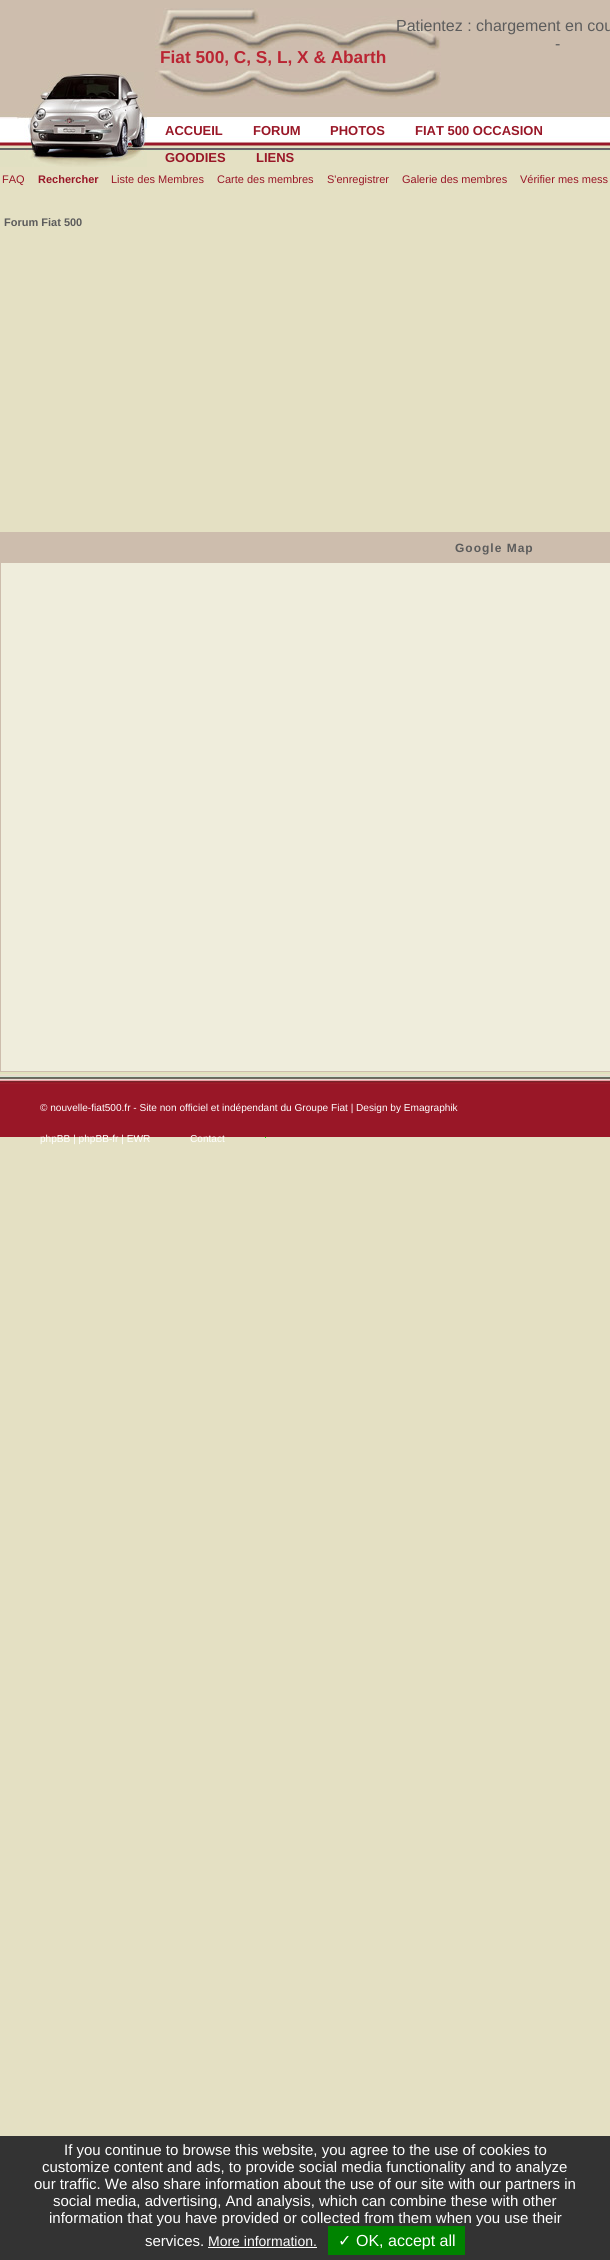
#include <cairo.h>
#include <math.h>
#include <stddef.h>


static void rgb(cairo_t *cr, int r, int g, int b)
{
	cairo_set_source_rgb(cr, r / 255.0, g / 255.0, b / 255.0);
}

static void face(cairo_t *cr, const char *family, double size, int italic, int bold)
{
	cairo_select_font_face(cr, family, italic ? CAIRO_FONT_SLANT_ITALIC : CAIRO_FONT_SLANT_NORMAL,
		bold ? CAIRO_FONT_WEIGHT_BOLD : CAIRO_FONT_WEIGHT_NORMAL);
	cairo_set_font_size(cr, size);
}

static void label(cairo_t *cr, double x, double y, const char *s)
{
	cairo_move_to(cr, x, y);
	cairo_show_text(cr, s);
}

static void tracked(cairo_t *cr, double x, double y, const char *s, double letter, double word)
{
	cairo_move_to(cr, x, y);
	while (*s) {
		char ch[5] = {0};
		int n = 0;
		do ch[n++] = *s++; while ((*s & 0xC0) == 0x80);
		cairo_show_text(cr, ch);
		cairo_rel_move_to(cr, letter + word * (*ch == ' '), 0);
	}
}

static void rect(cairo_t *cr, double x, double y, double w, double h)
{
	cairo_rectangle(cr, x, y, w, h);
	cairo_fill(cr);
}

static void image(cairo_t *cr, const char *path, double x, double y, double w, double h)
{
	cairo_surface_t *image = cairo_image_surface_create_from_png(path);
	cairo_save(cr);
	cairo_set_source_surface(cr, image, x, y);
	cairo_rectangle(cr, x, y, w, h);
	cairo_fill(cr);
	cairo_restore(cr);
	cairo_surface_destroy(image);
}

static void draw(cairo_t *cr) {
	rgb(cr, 228, 224, 195);
	cairo_paint(cr);
	image(cr, "image0.png", 0, 0, 610, 151);
	rgb(cr, 205, 189, 173);
	rect(cr, 0, 532, 610, 540);
	rgb(cr, 239, 237, 220);
	rect(cr, 1, 563, 609, 508);
	image(cr, "image1.png", 155, 8, 286, 91);
	face(cr, "Liberation Sans", 16, 0, 0);
	rgb(cr, 92, 92, 92);
	label(cr, 396, 31, "Patientez : chargement en cou");
	label(cr, 555, 49, "-");
	face(cr, "Liberation Sans", 12, 0, 1);
	tracked(cr, 455, 552, "Google Map", 1, 0);
	face(cr, "Liberation Sans", 17.25, 0, 1);
	rgb(cr, 186, 37, 51);
	label(cr, 160, 63, "Fiat 500, C, S, L, X & Abarth");
	image(cr, "image2.png", 0, 72, 147, 95);
	face(cr, "Liberation Sans", 13, 0, 1);
	rgb(cr, 153, 23, 39);
	label(cr, 165, 135, "ACCUEIL");
	label(cr, 253, 135, "FORUM");
	label(cr, 330, 135, "PHOTOS");
	label(cr, 415, 135, "FIAT 500 OCCASION");
	label(cr, 165, 162, "GOODIES");
	label(cr, 256, 162, "LIENS");
	face(cr, "Liberation Sans", 11, 0, 0);
	label(cr, 2, 183, "FAQ");
	face(cr, "Liberation Sans", 11, 0, 1);
	label(cr, 38, 183, "Rechercher");
	face(cr, "Liberation Sans", 11, 0, 0);
	label(cr, 111, 183, "Liste des Membres");
	label(cr, 217, 183, "Carte des membres");
	label(cr, 327, 183, "S'enregistrer");
	label(cr, 402, 183, "Galerie des membres");
	label(cr, 520, 183, "Vérifier mes mess");
	face(cr, "Liberation Sans", 11, 0, 1);
	rgb(cr, 92, 92, 92);
	label(cr, 4, 226, "Forum Fiat 500");
	rgb(cr, 153, 23, 39);
	rect(cr, 0, 1084, 610, 53);
	image(cr, "image3.png", 0, 1072, 610, 12);
	face(cr, "Liberation Sans", 10.1, 0, 0);
	rgb(cr, 255, 255, 255);
	label(cr, 40, 1111, "© nouvelle-fiat500.fr - Site non officiel et indépendant du Groupe Fiat | Design by Emagraphik");
	label(cr, 40, 1142, "phpBB | phpBB-fr | EWR");
	label(cr, 190, 1142, "Contact");
	rgb(cr, 0, 255, 0);
	rect(cr, 265, 1137, 1, 1);
	rgb(cr, 51, 51, 51);
	rect(cr, 0, 2136, 610, 124);
	face(cr, "Liberation Sans", 15, 0, 0);
	rgb(cr, 255, 255, 255);
	label(cr, 64, 2155, "If you continue to browse this website, you agree to the use of cookies to");
	label(cr, 42, 2172, "customize content and ads, to provide social media functionality and to analyze");
	label(cr, 34, 2189, "our traffic. We also share information about the use of our site with our partners in");
	label(cr, 53, 2206, "social media, advertising, And analysis, which can combine these with other");
	label(cr, 49, 2223, "information that you have provided or collected from them when you use their");
	label(cr, 145, 2246, "services.");
	face(cr, "Liberation Sans", 14, 0, 0);
	label(cr, 208, 2246, "More information.");
	rect(cr, 208, 2247, 109, 1);
	rgb(cr, 0, 131, 0);
	rect(cr, 328, 2226, 137, 29);
	face(cr, "DejaVu Sans", 16, 0, 0);
	rgb(cr, 255, 255, 255);
	label(cr, 338, 2246, "✓");
	face(cr, "Liberation Sans", 16, 0, 0);
	label(cr, 356, 2246, "OK, accept all");
}

int main(void) {
	cairo_surface_t *surface = cairo_image_surface_create(CAIRO_FORMAT_RGB24, 610, 2260);
	cairo_t *cr = cairo_create(surface);
	cairo_font_options_t *options = cairo_font_options_create();
	cairo_font_options_set_hint_metrics(options, CAIRO_HINT_METRICS_OFF);
	cairo_font_options_set_hint_style(options, CAIRO_HINT_STYLE_NONE);
	cairo_set_font_options(cr, options);
	cairo_set_miter_limit(cr, 4);
	draw(cr);
	cairo_surface_write_to_png(surface, "render.png");
	cairo_font_options_destroy(options);
	cairo_destroy(cr);
	cairo_surface_destroy(surface);
	return 0;
}
